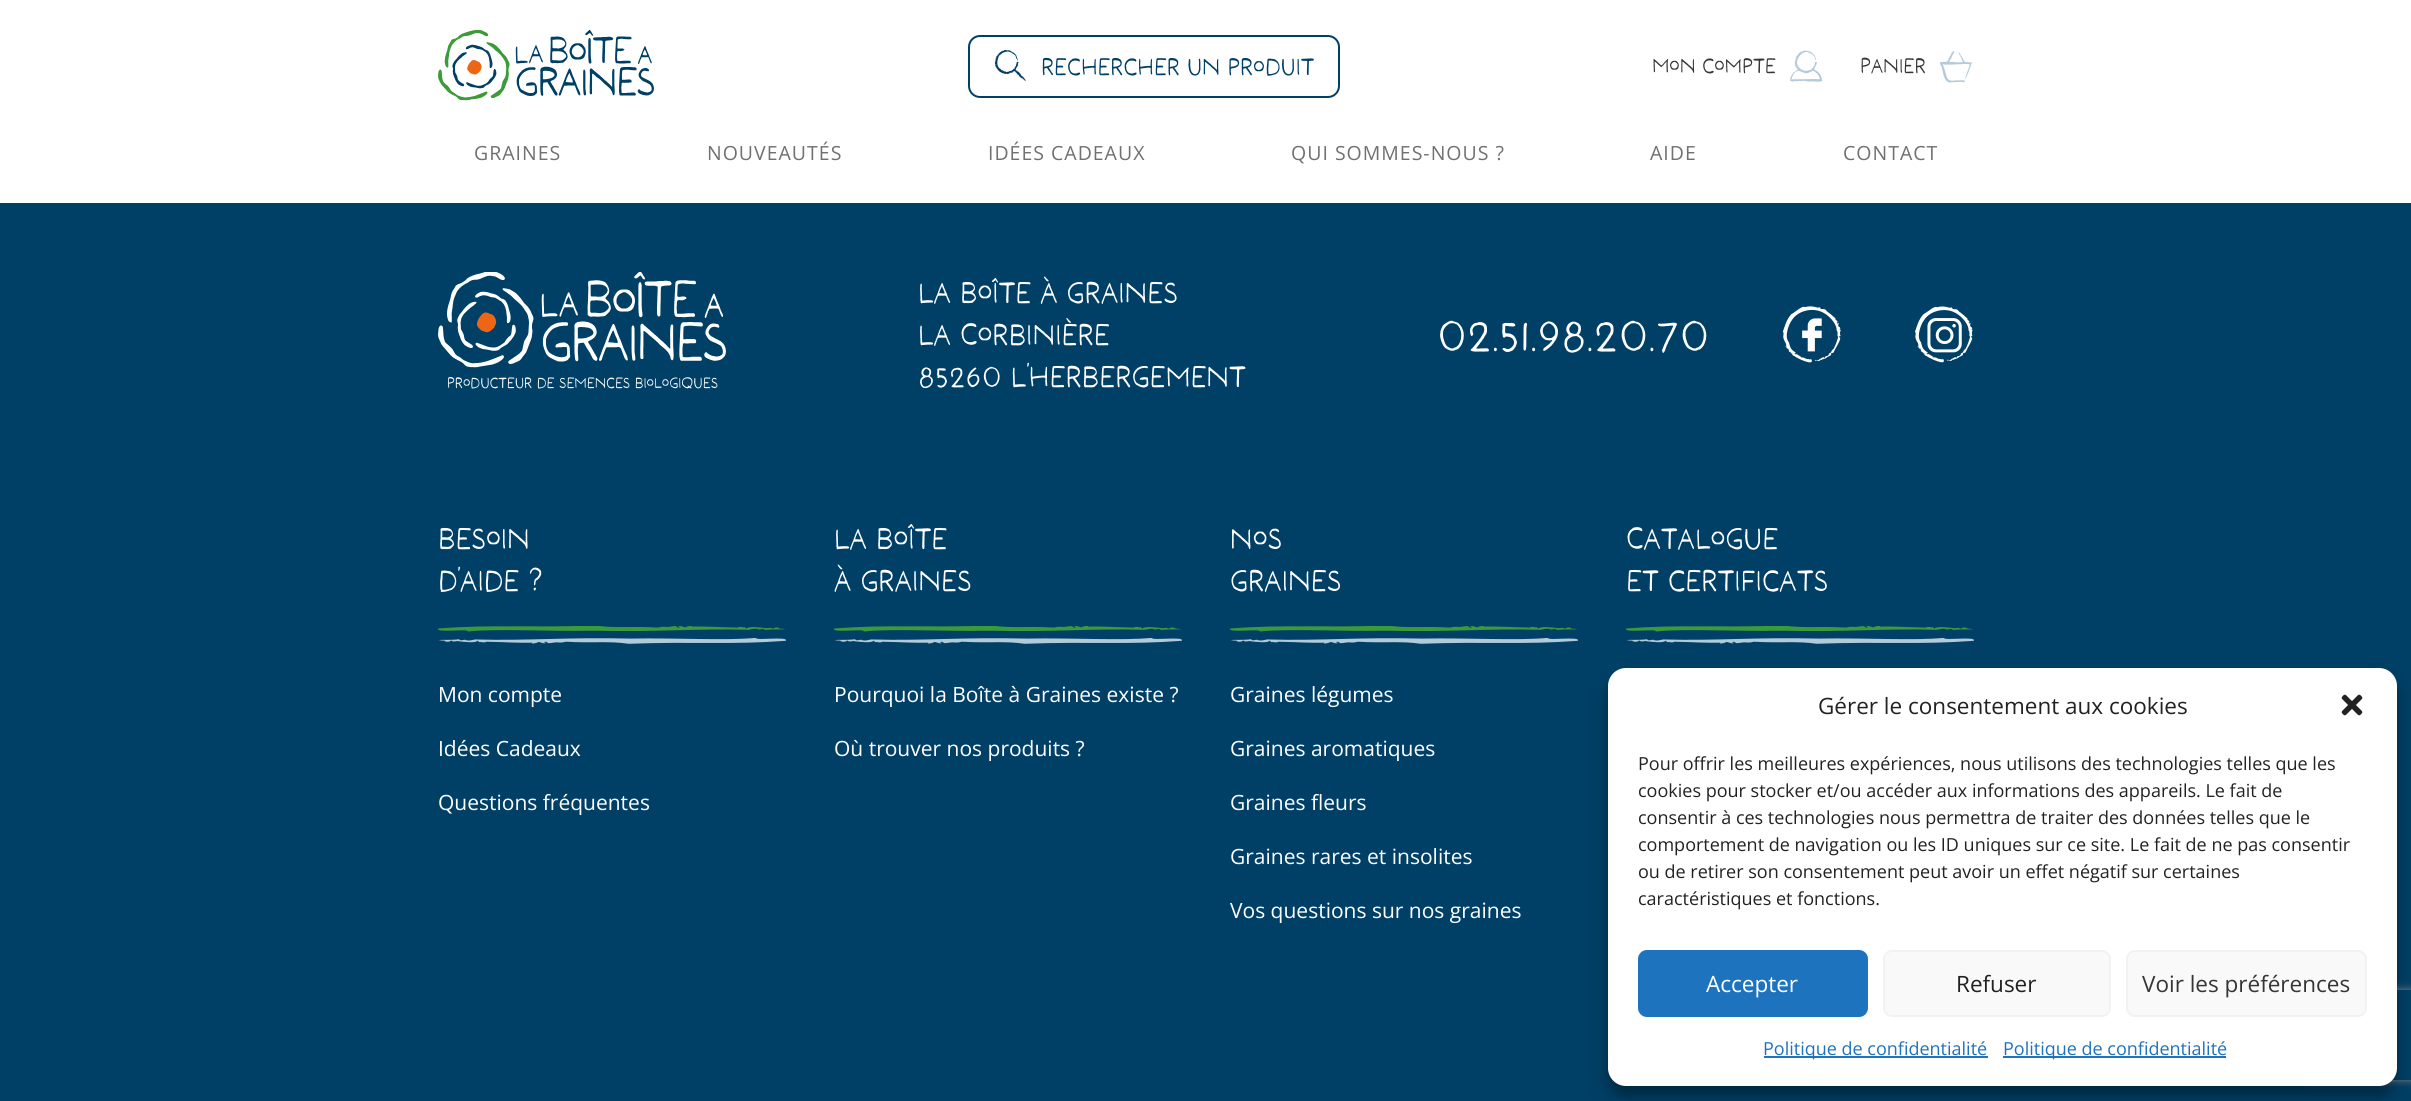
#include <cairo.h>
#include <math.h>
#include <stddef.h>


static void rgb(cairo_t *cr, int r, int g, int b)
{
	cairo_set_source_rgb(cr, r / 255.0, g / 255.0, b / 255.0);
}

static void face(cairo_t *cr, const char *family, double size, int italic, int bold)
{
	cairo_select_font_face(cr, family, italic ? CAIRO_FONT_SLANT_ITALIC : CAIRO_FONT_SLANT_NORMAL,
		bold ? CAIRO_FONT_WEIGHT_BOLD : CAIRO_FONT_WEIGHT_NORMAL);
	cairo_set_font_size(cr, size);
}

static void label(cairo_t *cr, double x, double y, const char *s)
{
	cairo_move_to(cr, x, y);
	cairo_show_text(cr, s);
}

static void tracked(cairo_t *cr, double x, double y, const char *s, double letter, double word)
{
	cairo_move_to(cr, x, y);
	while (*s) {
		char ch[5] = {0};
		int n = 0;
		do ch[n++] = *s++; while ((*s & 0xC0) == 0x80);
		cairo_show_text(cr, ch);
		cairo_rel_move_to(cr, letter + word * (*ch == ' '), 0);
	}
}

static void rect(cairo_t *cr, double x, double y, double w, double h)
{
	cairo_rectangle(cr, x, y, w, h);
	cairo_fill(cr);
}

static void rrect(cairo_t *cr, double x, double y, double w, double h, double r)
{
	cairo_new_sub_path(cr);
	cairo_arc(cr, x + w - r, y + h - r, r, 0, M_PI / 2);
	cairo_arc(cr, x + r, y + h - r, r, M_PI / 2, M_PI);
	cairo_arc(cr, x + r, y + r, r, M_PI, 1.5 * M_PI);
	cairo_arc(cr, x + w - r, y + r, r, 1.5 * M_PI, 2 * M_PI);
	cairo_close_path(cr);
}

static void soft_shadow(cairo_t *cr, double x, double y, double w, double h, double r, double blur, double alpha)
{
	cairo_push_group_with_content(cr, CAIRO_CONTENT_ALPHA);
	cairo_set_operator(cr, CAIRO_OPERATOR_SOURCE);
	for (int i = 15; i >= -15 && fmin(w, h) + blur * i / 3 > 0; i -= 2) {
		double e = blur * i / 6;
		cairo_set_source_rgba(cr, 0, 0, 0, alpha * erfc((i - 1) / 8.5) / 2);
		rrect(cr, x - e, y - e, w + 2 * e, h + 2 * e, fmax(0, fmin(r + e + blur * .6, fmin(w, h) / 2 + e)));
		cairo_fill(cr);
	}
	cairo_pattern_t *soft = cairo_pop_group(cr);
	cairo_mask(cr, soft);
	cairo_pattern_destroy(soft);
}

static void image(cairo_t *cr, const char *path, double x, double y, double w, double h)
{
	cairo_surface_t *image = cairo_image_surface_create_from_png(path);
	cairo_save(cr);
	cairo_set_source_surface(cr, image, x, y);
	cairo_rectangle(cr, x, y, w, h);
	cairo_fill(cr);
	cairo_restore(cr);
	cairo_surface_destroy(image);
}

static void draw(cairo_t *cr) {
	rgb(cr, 0, 64, 103);
	cairo_paint(cr);
	rgb(cr, 255, 255, 255);
	rect(cr, 0, 0, 2411, 203);
	image(cr, "image0.png", 438, 30, 216, 71);
	rrect(cr, 969, 36, 370, 61, 11);
	rgb(cr, 0, 64, 103);
	cairo_stroke(cr);
	image(cr, "image1.png", 994, 49, 32, 33);
	face(cr, "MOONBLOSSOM", 24, 0, 0);
	label(cr, 1041, 75, "Rechercher un produit");
	face(cr, "MOONBLOSSOM", 21, 0, 0);
	rgb(cr, 54, 54, 54);
	label(cr, 1652, 73, "Mon compte");
	image(cr, "image2.png", 1790, 50, 33, 32);
	label(cr, 1860, 73, "Panier");
	image(cr, "image3.png", 1940, 51, 33, 32);
	face(cr, "Open Sans", 19.5, 0, 0);
	rgb(cr, 112, 112, 112);
	tracked(cr, 474, 160, "GRAINES", 1, 0);
	tracked(cr, 707, 160, "NOUVEAUTÉS", 1, 0);
	tracked(cr, 988, 160, "IDÉES CADEAUX", 1, 0);
	tracked(cr, 1291, 160, "QUI SOMMES-NOUS ?", 1, 0);
	tracked(cr, 1650, 160, "AIDE", 1, 0);
	tracked(cr, 1843, 160, "CONTACT", 1, 0);
	face(cr, "MOONBLOSSOM", 30, 0, 0);
	rgb(cr, 255, 255, 255);
	label(cr, 918, 303, "La Boîte à Graines");
	label(cr, 918, 345, "La Corbinière");
	label(cr, 918, 387, "85260 L'Herbergement");
	face(cr, "MOONBLOSSOM", 45, 0, 0);
	label(cr, 1437, 351, "02.51.98.20.70");
	image(cr, "image4.png", 1782, 306, 59, 57);
	image(cr, "image5.png", 1915, 306, 58, 57);
	image(cr, "image6.png", 438, 272, 288, 96);
	face(cr, "MOONBLOSSOM", 15, 0, 0);
	label(cr, 447, 388, "Producteur de semences biologiques");
	face(cr, "MOONBLOSSOM", 30, 0, 0);
	label(cr, 438, 549, "Besoin");
	label(cr, 438, 591, "d'aide ?");
	image(cr, "image7.png", 438, 626, 348, 6);
	image(cr, "image8.png", 438, 638, 348, 6);
	face(cr, "Open Sans", 21, 0, 0);
	label(cr, 438, 702, "Mon compte");
	label(cr, 438, 756, "Idées Cadeaux");
	label(cr, 438, 810, "Questions fréquentes");
	face(cr, "MOONBLOSSOM", 30, 0, 0);
	label(cr, 834, 549, "La Boîte");
	label(cr, 834, 591, "à Graines");
	image(cr, "image7.png", 834, 626, 348, 6);
	image(cr, "image8.png", 834, 638, 348, 6);
	face(cr, "Open Sans", 21, 0, 0);
	label(cr, 834, 702, "Pourquoi la Boîte à Graines existe ?");
	label(cr, 834, 756, "Où trouver nos produits ?");
	face(cr, "MOONBLOSSOM", 30, 0, 0);
	label(cr, 1230, 549, "Nos");
	label(cr, 1230, 591, "Graines");
	image(cr, "image7.png", 1230, 626, 348, 6);
	image(cr, "image8.png", 1230, 638, 348, 6);
	face(cr, "Open Sans", 21, 0, 0);
	label(cr, 1230, 702, "Graines légumes");
	label(cr, 1230, 756, "Graines aromatiques");
	label(cr, 1230, 810, "Graines fleurs");
	label(cr, 1230, 864, "Graines rares et insolites");
	label(cr, 1230, 918, "Vos questions sur nos graines");
	face(cr, "MOONBLOSSOM", 30, 0, 0);
	label(cr, 1626, 549, "Catalogue");
	label(cr, 1626, 591, "et certificats");
	image(cr, "image7.png", 1626, 626, 348, 6);
	image(cr, "image8.png", 1626, 638, 348, 6);
	rgb(cr, 0, 0, 0);
	soft_shadow(cr, 1608, 677, 789, 418, 18, 4.5, 0.23);
	soft_shadow(cr, 1608, 683, 789, 418, 18, 15, 0.19);
	cairo_save(cr);
	cairo_set_fill_rule(cr, CAIRO_FILL_RULE_EVEN_ODD);
	cairo_new_path(cr);
	cairo_move_to(cr, 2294, 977);
	cairo_line_to(cr, 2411, 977);
	cairo_line_to(cr, 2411, 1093);
	cairo_line_to(cr, 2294, 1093);
	cairo_close_path(cr);
	cairo_move_to(cr, 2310, 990);
	cairo_line_to(cr, 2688, 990);
	cairo_curve_to(cr, 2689.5, 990, 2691, 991.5, 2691, 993);
	cairo_line_to(cr, 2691, 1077);
	cairo_curve_to(cr, 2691, 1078.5, 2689.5, 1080, 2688, 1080);
	cairo_line_to(cr, 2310, 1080);
	cairo_curve_to(cr, 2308.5, 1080, 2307, 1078.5, 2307, 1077);
	cairo_line_to(cr, 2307, 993);
	cairo_curve_to(cr, 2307, 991.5, 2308.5, 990, 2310, 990);
	cairo_close_path(cr);
	cairo_clip(cr);
	rgb(cr, 128, 128, 128);
	soft_shadow(cr, 2307, 990, 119, 90, 3, 4, 1);
	cairo_restore(cr);
	rgb(cr, 255, 255, 255);
	rrect(cr, 1608, 668, 789, 418, 18);
	cairo_fill(cr);
	face(cr, "Open Sans", 22.5, 0, 0);
	rgb(cr, 34, 34, 34);
	label(cr, 1818, 714, "Gérer le consentement aux cookies");
	image(cr, "image9.png", 2341, 694, 22, 22);
	face(cr, "Open Sans", 18, 0, 0);
	label(cr, 1638, 770, "Pour offrir les meilleures expériences, nous utilisons des technologies telles que les");
	label(cr, 1638, 797, "cookies pour stocker et/ou accéder aux informations des appareils. Le fait de");
	label(cr, 1638, 824, "consentir à ces technologies nous permettra de traiter des données telles que le");
	label(cr, 1638, 851, "comportement de navigation ou les ID uniques sur ce site. Le fait de ne pas consentir");
	label(cr, 1638, 878, "ou de retirer son consentement peut avoir un effet négatif sur certaines");
	label(cr, 1638, 905, "caractéristiques et fonctions.");
	rgb(cr, 30, 115, 190);
	rrect(cr, 1639, 951, 228, 65, 8);
	cairo_fill_preserve(cr);
	cairo_stroke(cr);
	face(cr, "Open Sans", 22.5, 0, 0);
	rgb(cr, 255, 255, 255);
	label(cr, 1706, 992, "Accepter");
	rgb(cr, 249, 249, 249);
	rrect(cr, 1884, 951, 226, 65, 8);
	cairo_fill_preserve(cr);
	rgb(cr, 242, 242, 242);
	cairo_stroke(cr);
	rgb(cr, 34, 34, 34);
	label(cr, 1956, 992, "Refuser");
	rgb(cr, 249, 249, 249);
	rrect(cr, 2127, 951, 239, 65, 8);
	cairo_fill_preserve(cr);
	rgb(cr, 242, 242, 242);
	cairo_stroke(cr);
	rgb(cr, 54, 54, 54);
	label(cr, 2142, 992, "Voir les préférences");
	rgb(cr, 30, 115, 190);
	rect(cr, 1764, 1056, 224, 2);
	face(cr, "Open Sans", 18, 0, 0);
	label(cr, 1763, 1055, "Politique de confidentialité");
	rect(cr, 2003, 1056, 223, 2);
	label(cr, 2003, 1055, "Politique de confidentialité");
}

int main(void) {
	cairo_surface_t *surface = cairo_image_surface_create(CAIRO_FORMAT_RGB24, 2411, 1101);
	cairo_t *cr = cairo_create(surface);
	cairo_font_options_t *options = cairo_font_options_create();
	cairo_font_options_set_hint_metrics(options, CAIRO_HINT_METRICS_OFF);
	cairo_font_options_set_hint_style(options, CAIRO_HINT_STYLE_NONE);
	cairo_set_font_options(cr, options);
	cairo_set_miter_limit(cr, 4);
	draw(cr);
	cairo_surface_write_to_png(surface, "render.png");
	cairo_font_options_destroy(options);
	cairo_destroy(cr);
	cairo_surface_destroy(surface);
	return 0;
}
